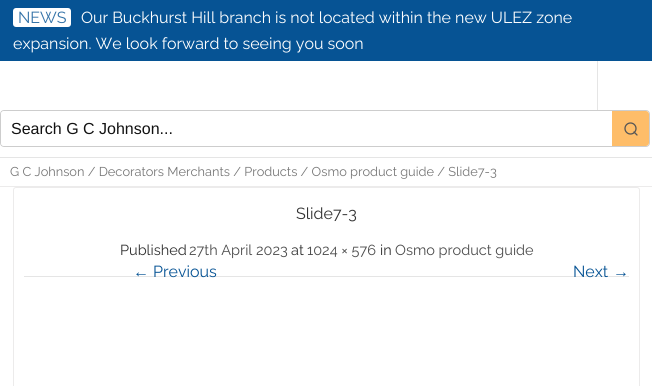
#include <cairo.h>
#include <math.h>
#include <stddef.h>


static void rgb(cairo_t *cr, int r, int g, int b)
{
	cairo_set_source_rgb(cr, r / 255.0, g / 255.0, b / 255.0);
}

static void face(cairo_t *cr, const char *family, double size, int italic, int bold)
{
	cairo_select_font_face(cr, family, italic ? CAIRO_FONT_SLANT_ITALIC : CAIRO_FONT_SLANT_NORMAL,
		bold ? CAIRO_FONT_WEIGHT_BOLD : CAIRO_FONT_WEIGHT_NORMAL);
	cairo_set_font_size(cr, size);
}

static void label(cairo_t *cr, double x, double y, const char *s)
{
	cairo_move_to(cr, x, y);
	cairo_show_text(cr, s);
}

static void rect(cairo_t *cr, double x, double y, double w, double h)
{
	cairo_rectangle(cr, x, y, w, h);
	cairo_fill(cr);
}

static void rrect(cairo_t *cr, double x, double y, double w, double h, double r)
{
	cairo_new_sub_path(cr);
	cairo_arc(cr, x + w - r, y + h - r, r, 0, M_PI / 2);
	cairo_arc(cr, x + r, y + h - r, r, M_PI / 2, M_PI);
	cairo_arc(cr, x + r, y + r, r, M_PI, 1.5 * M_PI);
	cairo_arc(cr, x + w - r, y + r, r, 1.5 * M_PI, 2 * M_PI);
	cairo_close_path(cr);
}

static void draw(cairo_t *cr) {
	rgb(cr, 255, 255, 255);
	cairo_paint(cr);
	rgb(cr, 6, 83, 148);
	rect(cr, 0, 0, 652, 61);
	face(cr, "Raleway", 16, 0, 0);
	rgb(cr, 255, 255, 255);
	label(cr, 81, 23, "Our Buckhurst Hill branch is not located within the new ULEZ zone");
	label(cr, 13, 49, "expansion. We look forward to seeing you soon");
	rrect(cr, 13, 8, 58, 19, 3);
	cairo_fill(cr);
	rgb(cr, 51, 114, 167);
	label(cr, 18, 23, "NEWS");
	rgb(cr, 229, 229, 229);
	rect(cr, 597, 61, 1, 49);
	rrect(cr, 0.5, 110.5, 649, 36, 3.5);
	rgb(cr, 205, 205, 205);
	cairo_set_line_width(cr, 1);
	cairo_stroke(cr);
	rgb(cr, 255, 255, 255);
	cairo_new_path(cr);
	cairo_move_to(cr, 4, 111);
	cairo_line_to(cr, 612, 111);
	cairo_line_to(cr, 612, 146);
	cairo_line_to(cr, 4, 146);
	cairo_curve_to(cr, 2.5, 146, 1, 144.5, 1, 143);
	cairo_line_to(cr, 1, 114);
	cairo_curve_to(cr, 1, 112.5, 2.5, 111, 4, 111);
	cairo_close_path(cr);
	cairo_fill(cr);
	face(cr, "Liberation Sans", 16, 0, 0);
	rgb(cr, 17, 17, 17);
	label(cr, 11, 134, "Search G C Johnson...");
	rgb(cr, 254, 189, 105);
	cairo_new_path(cr);
	cairo_move_to(cr, 612, 111);
	cairo_line_to(cr, 646, 111);
	cairo_curve_to(cr, 647.5, 111, 649, 112.5, 649, 114);
	cairo_line_to(cr, 649, 143);
	cairo_curve_to(cr, 649, 144.5, 647.5, 146, 646, 146);
	cairo_line_to(cr, 612, 146);
	cairo_close_path(cr);
	cairo_fill(cr);
	cairo_arc(cr, 630.5, 128.5, 5.5, 0, 2 * M_PI);
	rgb(cr, 85, 85, 85);
	cairo_set_line_width(cr, 1.3);
	cairo_stroke(cr);
	cairo_new_path(cr);
	cairo_move_to(cr, 637, 135);
	cairo_line_to(cr, 634, 132);
	cairo_set_line_cap(cr, CAIRO_LINE_CAP_ROUND);
	cairo_set_line_join(cr, CAIRO_LINE_JOIN_ROUND);
	cairo_stroke(cr);
	rgb(cr, 229, 229, 229);
	rect(cr, 0, 157, 652, 1);
	rgb(cr, 236, 235, 235);
	rect(cr, 0, 186, 652, 1);
	face(cr, "Raleway", 12.8, 0, 0);
	rgb(cr, 119, 119, 119);
	label(cr, 10, 176, "G C Johnson / Decorators Merchants / Products / Osmo product guide / Slide7-3");
	rrect(cr, 13.5, 187.5, 626, 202, 2.5);
	rgb(cr, 236, 235, 235);
	cairo_set_line_width(cr, 1);
	cairo_set_line_cap(cr, CAIRO_LINE_CAP_BUTT);
	cairo_set_line_join(cr, CAIRO_LINE_JOIN_MITER);
	cairo_stroke(cr);
	rgb(cr, 229, 229, 229);
	rect(cr, 24, 276, 605, 1);
	face(cr, "Raleway", 16, 0, 0);
	rgb(cr, 50, 50, 50);
	label(cr, 296, 219, "Slide7-3");
	face(cr, "Raleway", 14.5, 0, 0);
	label(cr, 120, 255, "Published");
	rgb(cr, 77, 77, 77);
	label(cr, 189, 255, "27th April 2023");
	rgb(cr, 50, 50, 50);
	label(cr, 291, 255, "at");
	rgb(cr, 77, 77, 77);
	label(cr, 307, 255, "1024 × 576");
	rgb(cr, 50, 50, 50);
	label(cr, 380, 255, "in");
	rgb(cr, 77, 77, 77);
	label(cr, 395, 255, "Osmo product guide");
	face(cr, "Liberation Sans", 16, 0, 0);
	rgb(cr, 6, 83, 148);
	label(cr, 133, 277, "←");
	face(cr, "Raleway", 16, 0, 0);
	label(cr, 153, 277, "Previous");
	label(cr, 573, 277, "Next");
	face(cr, "Liberation Sans", 16, 0, 0);
	label(cr, 613, 277, "→");
}

int main(void) {
	cairo_surface_t *surface = cairo_image_surface_create(CAIRO_FORMAT_RGB24, 652, 386);
	cairo_t *cr = cairo_create(surface);
	cairo_font_options_t *options = cairo_font_options_create();
	cairo_font_options_set_hint_metrics(options, CAIRO_HINT_METRICS_OFF);
	cairo_font_options_set_hint_style(options, CAIRO_HINT_STYLE_NONE);
	cairo_set_font_options(cr, options);
	cairo_set_miter_limit(cr, 4);
	draw(cr);
	cairo_surface_write_to_png(surface, "render.png");
	cairo_font_options_destroy(options);
	cairo_destroy(cr);
	cairo_surface_destroy(surface);
	return 0;
}
